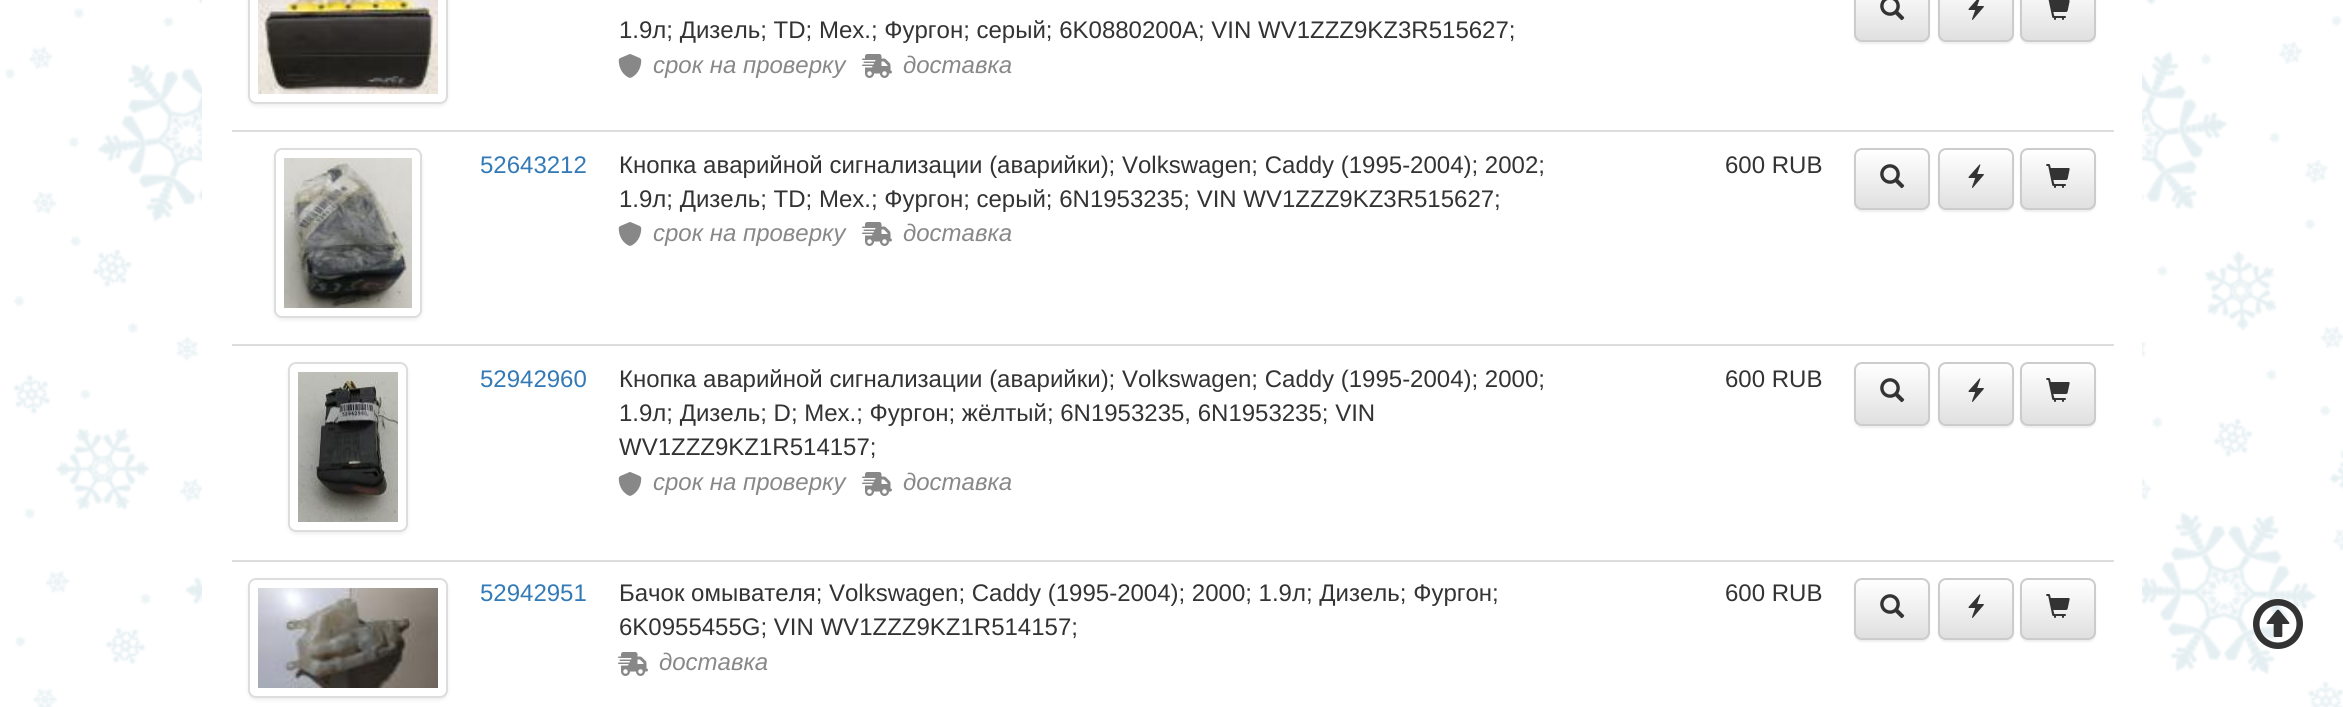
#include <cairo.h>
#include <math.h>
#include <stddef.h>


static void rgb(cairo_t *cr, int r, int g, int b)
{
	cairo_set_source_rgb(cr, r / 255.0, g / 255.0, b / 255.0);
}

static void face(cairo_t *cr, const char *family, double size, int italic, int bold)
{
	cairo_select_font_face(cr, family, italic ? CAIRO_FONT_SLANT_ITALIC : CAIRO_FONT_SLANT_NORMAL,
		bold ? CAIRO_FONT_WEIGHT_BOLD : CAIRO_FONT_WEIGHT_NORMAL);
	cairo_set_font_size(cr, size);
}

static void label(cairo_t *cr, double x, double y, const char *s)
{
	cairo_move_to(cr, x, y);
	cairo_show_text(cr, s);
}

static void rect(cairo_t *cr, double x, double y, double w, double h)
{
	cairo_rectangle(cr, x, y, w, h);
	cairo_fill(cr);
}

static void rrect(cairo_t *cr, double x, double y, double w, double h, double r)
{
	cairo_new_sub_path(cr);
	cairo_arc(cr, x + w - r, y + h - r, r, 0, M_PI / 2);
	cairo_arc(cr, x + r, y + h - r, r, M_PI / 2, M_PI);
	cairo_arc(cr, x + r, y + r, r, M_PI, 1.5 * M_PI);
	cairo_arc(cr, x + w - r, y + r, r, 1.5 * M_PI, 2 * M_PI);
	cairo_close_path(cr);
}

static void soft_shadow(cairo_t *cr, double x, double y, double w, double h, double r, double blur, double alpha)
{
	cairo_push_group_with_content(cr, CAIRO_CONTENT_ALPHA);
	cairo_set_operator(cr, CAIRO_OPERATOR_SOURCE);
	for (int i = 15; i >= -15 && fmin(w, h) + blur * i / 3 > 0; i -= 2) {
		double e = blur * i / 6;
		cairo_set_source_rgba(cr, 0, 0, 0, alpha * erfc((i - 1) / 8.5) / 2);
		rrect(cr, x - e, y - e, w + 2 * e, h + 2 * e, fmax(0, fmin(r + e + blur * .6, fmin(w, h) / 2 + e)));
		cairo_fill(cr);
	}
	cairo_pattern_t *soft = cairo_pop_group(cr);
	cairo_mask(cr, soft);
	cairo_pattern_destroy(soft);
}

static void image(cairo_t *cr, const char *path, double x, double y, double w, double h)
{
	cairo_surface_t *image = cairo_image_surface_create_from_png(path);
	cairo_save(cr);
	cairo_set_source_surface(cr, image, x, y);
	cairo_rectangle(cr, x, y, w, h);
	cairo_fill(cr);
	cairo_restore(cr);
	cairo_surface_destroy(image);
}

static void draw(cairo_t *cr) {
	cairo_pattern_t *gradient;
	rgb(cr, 255, 255, 255);
	cairo_paint(cr);
	image(cr, "image0.png", 5, 0, 2338, 707);
	rgb(cr, 255, 255, 255);
	rect(cr, 202, 0, 1940, 707);
	rgb(cr, 0, 0, 0);
	soft_shadow(cr, 248, -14, 200, 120, 8, 2, 0.07);
	rgb(cr, 255, 255, 255);
	rrect(cr, 249, -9, 198, 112, 7);
	cairo_fill_preserve(cr);
	rgb(cr, 221, 221, 221);
	cairo_stroke(cr);
	image(cr, "image1.png", 258, 0, 180, 94);
	face(cr, "Liberation Sans", 24, 0, 0);
	rgb(cr, 51, 51, 51);
	label(cr, 619, 38, "1.9л; Дизель; TD; Мех.; Фургон; серый; 6K0880200A; VIN WV1ZZZ9KZ3R515627;");
	image(cr, "image2.png", 618, 54, 24, 24);
	face(cr, "Liberation Sans", 24, 1, 0);
	rgb(cr, 136, 136, 136);
	label(cr, 653, 73, "срок на проверку");
	image(cr, "image3.png", 862, 54, 30, 24);
	label(cr, 903, 73, "доставка");
	rgb(cr, 0, 0, 0);
	soft_shadow(cr, 1854, -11, 76, 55, 8, 1, 0.07);
	cairo_save(cr);
	rrect(cr, 1854, -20, 76, 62, 8);
	cairo_clip(cr);
	gradient = cairo_pattern_create_linear(1892, -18, 1892, 40);
	cairo_pattern_add_color_stop_rgba(gradient, 0, 1, 1, 1, 1);
	cairo_pattern_add_color_stop_rgba(gradient, 1, 0.878, 0.878, 0.878, 1);
	cairo_set_source(cr, gradient);
	cairo_pattern_destroy(gradient);
	rect(cr, 1854, 0, 76, 40);
	cairo_restore(cr);
	rrect(cr, 1855, -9, 74, 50, 7);
	rgb(cr, 204, 204, 204);
	cairo_stroke(cr);
	image(cr, "image4.png", 1880, 0, 25, 21);
	rgb(cr, 0, 0, 0);
	soft_shadow(cr, 1938, -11, 76, 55, 8, 1, 0.07);
	cairo_save(cr);
	rrect(cr, 1938, -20, 76, 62, 8);
	cairo_clip(cr);
	gradient = cairo_pattern_create_linear(1976, -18, 1976, 40);
	cairo_pattern_add_color_stop_rgba(gradient, 0, 1, 1, 1, 1);
	cairo_pattern_add_color_stop_rgba(gradient, 1, 0.878, 0.878, 0.878, 1);
	cairo_set_source(cr, gradient);
	cairo_pattern_destroy(gradient);
	rect(cr, 1938, 0, 76, 40);
	cairo_restore(cr);
	rrect(cr, 1939, -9, 74, 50, 7);
	rgb(cr, 204, 204, 204);
	cairo_stroke(cr);
	image(cr, "image5.png", 1968, 0, 16, 20);
	rgb(cr, 0, 0, 0);
	soft_shadow(cr, 2020, -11, 76, 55, 8, 1, 0.07);
	cairo_save(cr);
	rrect(cr, 2020, -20, 76, 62, 8);
	cairo_clip(cr);
	gradient = cairo_pattern_create_linear(2058, -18, 2058, 40);
	cairo_pattern_add_color_stop_rgba(gradient, 0, 1, 1, 1, 1);
	cairo_pattern_add_color_stop_rgba(gradient, 1, 0.878, 0.878, 0.878, 1);
	cairo_set_source(cr, gradient);
	cairo_pattern_destroy(gradient);
	rect(cr, 2020, 0, 76, 40);
	cairo_restore(cr);
	rrect(cr, 2021, -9, 74, 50, 7);
	rgb(cr, 204, 204, 204);
	cairo_stroke(cr);
	image(cr, "image6.png", 2048, 0, 22, 20);
	rgb(cr, 221, 221, 221);
	rect(cr, 232, 130, 1882, 2);
	rgb(cr, 0, 0, 0);
	soft_shadow(cr, 1854, 150, 76, 62, 8, 1, 0.07);
	cairo_save(cr);
	rrect(cr, 1854, 148, 76, 62, 8);
	cairo_clip(cr);
	gradient = cairo_pattern_create_linear(1892, 150, 1892, 208);
	cairo_pattern_add_color_stop_rgba(gradient, 0, 1, 1, 1, 1);
	cairo_pattern_add_color_stop_rgba(gradient, 1, 0.878, 0.878, 0.878, 1);
	cairo_set_source(cr, gradient);
	cairo_pattern_destroy(gradient);
	rect(cr, 1854, 150, 76, 58);
	cairo_restore(cr);
	rrect(cr, 1855, 149, 74, 60, 7);
	rgb(cr, 204, 204, 204);
	cairo_stroke(cr);
	image(cr, "image7.png", 1880, 164, 25, 25);
	rgb(cr, 0, 0, 0);
	soft_shadow(cr, 1938, 150, 76, 62, 8, 1, 0.07);
	cairo_save(cr);
	rrect(cr, 1938, 148, 76, 62, 8);
	cairo_clip(cr);
	gradient = cairo_pattern_create_linear(1976, 150, 1976, 208);
	cairo_pattern_add_color_stop_rgba(gradient, 0, 1, 1, 1, 1);
	cairo_pattern_add_color_stop_rgba(gradient, 1, 0.878, 0.878, 0.878, 1);
	cairo_set_source(cr, gradient);
	cairo_pattern_destroy(gradient);
	rect(cr, 1938, 150, 76, 58);
	cairo_restore(cr);
	rrect(cr, 1939, 149, 74, 60, 7);
	rgb(cr, 204, 204, 204);
	cairo_stroke(cr);
	image(cr, "image8.png", 1968, 164, 16, 24);
	rgb(cr, 0, 0, 0);
	soft_shadow(cr, 2020, 150, 76, 62, 8, 1, 0.07);
	cairo_save(cr);
	rrect(cr, 2020, 148, 76, 62, 8);
	cairo_clip(cr);
	gradient = cairo_pattern_create_linear(2058, 150, 2058, 208);
	cairo_pattern_add_color_stop_rgba(gradient, 0, 1, 1, 1, 1);
	cairo_pattern_add_color_stop_rgba(gradient, 1, 0.878, 0.878, 0.878, 1);
	cairo_set_source(cr, gradient);
	cairo_pattern_destroy(gradient);
	rect(cr, 2020, 150, 76, 58);
	cairo_restore(cr);
	rrect(cr, 2021, 149, 74, 60, 7);
	rgb(cr, 204, 204, 204);
	cairo_stroke(cr);
	image(cr, "image9.png", 2046, 164, 24, 24);
	rgb(cr, 0, 0, 0);
	soft_shadow(cr, 274, 150, 148, 170, 8, 2, 0.07);
	rgb(cr, 255, 255, 255);
	rrect(cr, 275, 149, 146, 168, 7);
	cairo_fill_preserve(cr);
	rgb(cr, 221, 221, 221);
	cairo_stroke(cr);
	image(cr, "image10.png", 284, 158, 128, 150);
	face(cr, "Liberation Sans", 24, 0, 0);
	rgb(cr, 51, 122, 183);
	label(cr, 480, 173, "52643212");
	rgb(cr, 51, 51, 51);
	label(cr, 619, 173, "Кнопка аварийной сигнализации (аварийки); Volkswagen; Caddy (1995-2004); 2002;");
	label(cr, 619, 207, "1.9л; Дизель; TD; Мех.; Фургон; серый; 6N1953235; VIN WV1ZZZ9KZ3R515627;");
	image(cr, "image2.png", 618, 222, 24, 24);
	face(cr, "Liberation Sans", 24, 1, 0);
	rgb(cr, 136, 136, 136);
	label(cr, 653, 241, "срок на проверку");
	image(cr, "image3.png", 862, 222, 30, 24);
	label(cr, 903, 241, "доставка");
	face(cr, "Liberation Sans", 24, 0, 0);
	rgb(cr, 51, 51, 51);
	label(cr, 1725, 173, "600 RUB");
	rgb(cr, 221, 221, 221);
	rect(cr, 232, 344, 1882, 2);
	rgb(cr, 0, 0, 0);
	soft_shadow(cr, 1854, 364, 76, 64, 8, 1, 0.07);
	cairo_save(cr);
	rrect(cr, 1854, 362, 76, 64, 8);
	cairo_clip(cr);
	gradient = cairo_pattern_create_linear(1892, 364, 1892, 424);
	cairo_pattern_add_color_stop_rgba(gradient, 0, 1, 1, 1, 1);
	cairo_pattern_add_color_stop_rgba(gradient, 1, 0.878, 0.878, 0.878, 1);
	cairo_set_source(cr, gradient);
	cairo_pattern_destroy(gradient);
	rect(cr, 1854, 364, 76, 60);
	cairo_restore(cr);
	rrect(cr, 1855, 363, 74, 62, 7);
	rgb(cr, 204, 204, 204);
	cairo_stroke(cr);
	image(cr, "image11.png", 1880, 378, 25, 25);
	rgb(cr, 0, 0, 0);
	soft_shadow(cr, 1938, 364, 76, 64, 8, 1, 0.07);
	cairo_save(cr);
	rrect(cr, 1938, 362, 76, 64, 8);
	cairo_clip(cr);
	gradient = cairo_pattern_create_linear(1976, 364, 1976, 424);
	cairo_pattern_add_color_stop_rgba(gradient, 0, 1, 1, 1, 1);
	cairo_pattern_add_color_stop_rgba(gradient, 1, 0.878, 0.878, 0.878, 1);
	cairo_set_source(cr, gradient);
	cairo_pattern_destroy(gradient);
	rect(cr, 1938, 364, 76, 60);
	cairo_restore(cr);
	rrect(cr, 1939, 363, 74, 62, 7);
	rgb(cr, 204, 204, 204);
	cairo_stroke(cr);
	image(cr, "image12.png", 1968, 378, 16, 24);
	rgb(cr, 0, 0, 0);
	soft_shadow(cr, 2020, 364, 76, 64, 8, 1, 0.07);
	cairo_save(cr);
	rrect(cr, 2020, 362, 76, 64, 8);
	cairo_clip(cr);
	gradient = cairo_pattern_create_linear(2058, 364, 2058, 424);
	cairo_pattern_add_color_stop_rgba(gradient, 0, 1, 1, 1, 1);
	cairo_pattern_add_color_stop_rgba(gradient, 1, 0.878, 0.878, 0.878, 1);
	cairo_set_source(cr, gradient);
	cairo_pattern_destroy(gradient);
	rect(cr, 2020, 364, 76, 60);
	cairo_restore(cr);
	rrect(cr, 2021, 363, 74, 62, 7);
	rgb(cr, 204, 204, 204);
	cairo_stroke(cr);
	image(cr, "image13.png", 2046, 378, 24, 24);
	rgb(cr, 0, 0, 0);
	soft_shadow(cr, 288, 364, 120, 170, 8, 2, 0.07);
	rgb(cr, 255, 255, 255);
	rrect(cr, 289, 363, 118, 168, 7);
	cairo_fill_preserve(cr);
	rgb(cr, 221, 221, 221);
	cairo_stroke(cr);
	image(cr, "image14.png", 298, 372, 100, 150);
	rgb(cr, 51, 122, 183);
	label(cr, 480, 387, "52942960");
	rgb(cr, 51, 51, 51);
	label(cr, 619, 387, "Кнопка аварийной сигнализации (аварийки); Volkswagen; Caddy (1995-2004); 2000;");
	label(cr, 619, 421, "1.9л; Дизель; D; Мех.; Фургон; жёлтый; 6N1953235, 6N1953235; VIN");
	label(cr, 619, 455, "WV1ZZZ9KZ1R514157;");
	image(cr, "image2.png", 618, 472, 24, 24);
	face(cr, "Liberation Sans", 24, 1, 0);
	rgb(cr, 136, 136, 136);
	label(cr, 653, 490, "срок на проверку");
	image(cr, "image3.png", 862, 472, 30, 24);
	label(cr, 903, 490, "доставка");
	face(cr, "Liberation Sans", 24, 0, 0);
	rgb(cr, 51, 51, 51);
	label(cr, 1725, 387, "600 RUB");
	rgb(cr, 221, 221, 221);
	rect(cr, 232, 560, 1882, 2);
	rgb(cr, 0, 0, 0);
	soft_shadow(cr, 1854, 580, 76, 62, 8, 1, 0.07);
	cairo_save(cr);
	rrect(cr, 1854, 578, 76, 62, 8);
	cairo_clip(cr);
	gradient = cairo_pattern_create_linear(1892, 580, 1892, 638);
	cairo_pattern_add_color_stop_rgba(gradient, 0, 1, 1, 1, 1);
	cairo_pattern_add_color_stop_rgba(gradient, 1, 0.878, 0.878, 0.878, 1);
	cairo_set_source(cr, gradient);
	cairo_pattern_destroy(gradient);
	rect(cr, 1854, 580, 76, 58);
	cairo_restore(cr);
	rrect(cr, 1855, 579, 74, 60, 7);
	rgb(cr, 204, 204, 204);
	cairo_stroke(cr);
	image(cr, "image7.png", 1880, 594, 25, 25);
	rgb(cr, 0, 0, 0);
	soft_shadow(cr, 1938, 580, 76, 62, 8, 1, 0.07);
	cairo_save(cr);
	rrect(cr, 1938, 578, 76, 62, 8);
	cairo_clip(cr);
	gradient = cairo_pattern_create_linear(1976, 580, 1976, 638);
	cairo_pattern_add_color_stop_rgba(gradient, 0, 1, 1, 1, 1);
	cairo_pattern_add_color_stop_rgba(gradient, 1, 0.878, 0.878, 0.878, 1);
	cairo_set_source(cr, gradient);
	cairo_pattern_destroy(gradient);
	rect(cr, 1938, 580, 76, 58);
	cairo_restore(cr);
	rrect(cr, 1939, 579, 74, 60, 7);
	rgb(cr, 204, 204, 204);
	cairo_stroke(cr);
	image(cr, "image8.png", 1968, 594, 16, 24);
	rgb(cr, 0, 0, 0);
	soft_shadow(cr, 2020, 580, 76, 62, 8, 1, 0.07);
	cairo_save(cr);
	rrect(cr, 2020, 578, 76, 62, 8);
	cairo_clip(cr);
	gradient = cairo_pattern_create_linear(2058, 580, 2058, 638);
	cairo_pattern_add_color_stop_rgba(gradient, 0, 1, 1, 1, 1);
	cairo_pattern_add_color_stop_rgba(gradient, 1, 0.878, 0.878, 0.878, 1);
	cairo_set_source(cr, gradient);
	cairo_pattern_destroy(gradient);
	rect(cr, 2020, 580, 76, 58);
	cairo_restore(cr);
	rrect(cr, 2021, 579, 74, 60, 7);
	rgb(cr, 204, 204, 204);
	cairo_stroke(cr);
	image(cr, "image9.png", 2046, 594, 24, 24);
	rgb(cr, 0, 0, 0);
	soft_shadow(cr, 248, 580, 200, 120, 8, 2, 0.07);
	rgb(cr, 255, 255, 255);
	rrect(cr, 249, 579, 198, 118, 7);
	cairo_fill_preserve(cr);
	rgb(cr, 221, 221, 221);
	cairo_stroke(cr);
	image(cr, "image15.png", 258, 588, 180, 100);
	rgb(cr, 51, 122, 183);
	label(cr, 480, 601, "52942951");
	rgb(cr, 51, 51, 51);
	label(cr, 619, 601, "Бачок омывателя; Volkswagen; Caddy (1995-2004); 2000; 1.9л; Дизель; Фургон;");
	label(cr, 619, 635, "6K0955455G; VIN WV1ZZZ9KZ1R514157;");
	image(cr, "image3.png", 618, 652, 30, 24);
	face(cr, "Liberation Sans", 24, 1, 0);
	rgb(cr, 136, 136, 136);
	label(cr, 659, 670, "доставка");
	face(cr, "Liberation Sans", 24, 0, 0);
	rgb(cr, 51, 51, 51);
	label(cr, 1725, 601, "600 RUB");
	image(cr, "image16.png", 2253, 599, 50, 50);
}

int main(void) {
	cairo_surface_t *surface = cairo_image_surface_create(CAIRO_FORMAT_RGB24, 2343, 707);
	cairo_t *cr = cairo_create(surface);
	cairo_font_options_t *options = cairo_font_options_create();
	cairo_font_options_set_hint_metrics(options, CAIRO_HINT_METRICS_OFF);
	cairo_font_options_set_hint_style(options, CAIRO_HINT_STYLE_NONE);
	cairo_set_font_options(cr, options);
	cairo_set_miter_limit(cr, 4);
	draw(cr);
	cairo_surface_write_to_png(surface, "render.png");
	cairo_font_options_destroy(options);
	cairo_destroy(cr);
	cairo_surface_destroy(surface);
	return 0;
}
